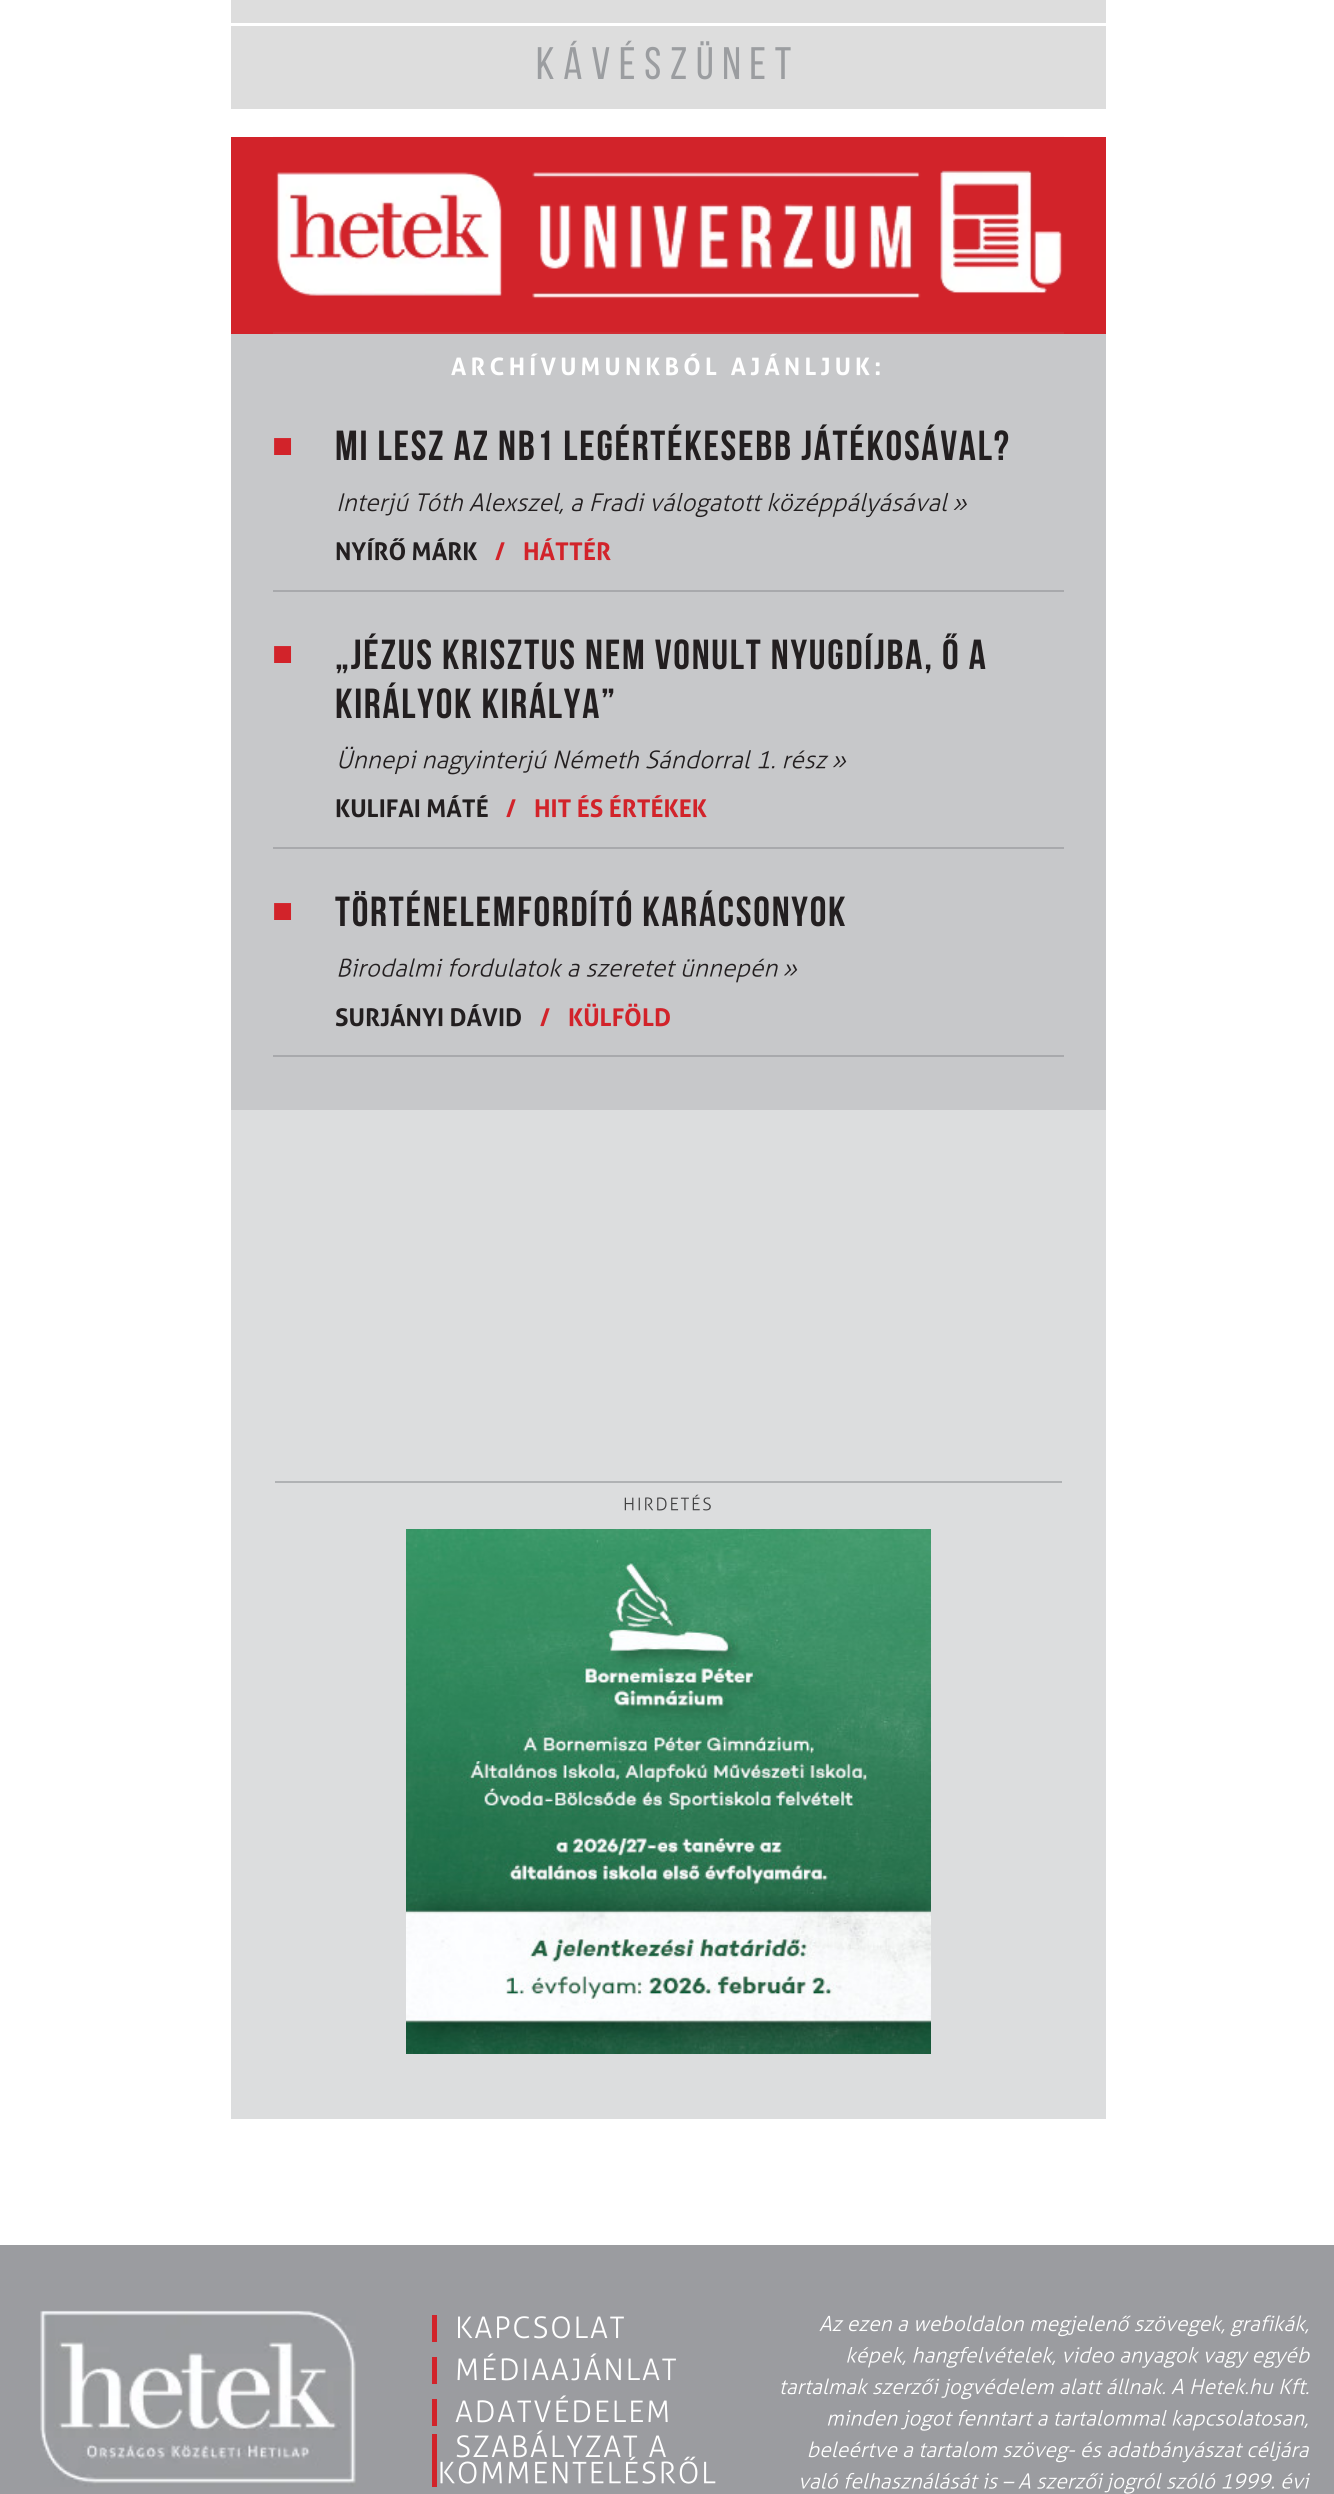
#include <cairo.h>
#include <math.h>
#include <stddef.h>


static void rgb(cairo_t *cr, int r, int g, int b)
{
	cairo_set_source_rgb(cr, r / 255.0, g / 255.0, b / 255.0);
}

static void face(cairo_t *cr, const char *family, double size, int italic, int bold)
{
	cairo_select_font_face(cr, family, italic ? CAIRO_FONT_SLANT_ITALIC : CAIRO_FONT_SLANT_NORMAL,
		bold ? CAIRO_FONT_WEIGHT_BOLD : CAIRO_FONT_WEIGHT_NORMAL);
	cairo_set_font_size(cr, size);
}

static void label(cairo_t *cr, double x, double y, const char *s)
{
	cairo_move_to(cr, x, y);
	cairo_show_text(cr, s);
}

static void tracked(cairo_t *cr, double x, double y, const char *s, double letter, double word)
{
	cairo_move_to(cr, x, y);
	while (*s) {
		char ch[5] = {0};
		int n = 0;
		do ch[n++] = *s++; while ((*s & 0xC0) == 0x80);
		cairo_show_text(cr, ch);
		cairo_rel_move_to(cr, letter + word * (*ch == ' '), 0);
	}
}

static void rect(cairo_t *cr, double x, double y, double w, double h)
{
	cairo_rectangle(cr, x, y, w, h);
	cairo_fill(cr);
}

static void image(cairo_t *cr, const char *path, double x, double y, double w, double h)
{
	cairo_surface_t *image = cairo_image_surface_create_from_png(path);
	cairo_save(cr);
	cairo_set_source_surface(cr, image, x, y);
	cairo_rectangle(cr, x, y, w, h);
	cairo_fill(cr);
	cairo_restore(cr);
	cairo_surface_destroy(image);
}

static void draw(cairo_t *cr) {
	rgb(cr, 255, 255, 255);
	cairo_paint(cr);
	rgb(cr, 221, 221, 221);
	rect(cr, 231, 0, 875, 23);
	rect(cr, 231, 26, 875, 83);
	face(cr, "Bebas Neue", 45.5, 0, 0);
	rgb(cr, 155, 157, 160);
	tracked(cr, 536, 79, "KÁVÉSZÜNET", 8.75, 0);
	rgb(cr, 220, 221, 222);
	rect(cr, 231, 1110, 875, 1009);
	rgb(cr, 210, 35, 42);
	rect(cr, 231, 137, 875, 197);
	image(cr, "image0.png", 273, 136, 791, 198);
	rgb(cr, 199, 200, 202);
	rect(cr, 231, 334, 875, 776);
	face(cr, "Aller", 24.1, 0, 1);
	rgb(cr, 255, 255, 255);
	tracked(cr, 451, 375, "ARCHÍVUMUNKBÓL AJÁNLJUK:", 4.25, 0);
	face(cr, "Liberation Sans", 35, 0, 0);
	rgb(cr, 210, 35, 42);
	label(cr, 272, 457, "■");
	face(cr, "Bebas Neue", 42, 0, 1);
	rgb(cr, 35, 31, 32);
	tracked(cr, 335, 460, "MI LESZ AZ NB1 LEGÉRTÉKESEBB JÁTÉKOSÁVAL?", 1.75, 0);
	image(cr, "image1.png", 338, 492, 611, 26);
	image(cr, "image2.png", 953, 499, 14, 11);
	rgb(cr, 168, 169, 172);
	rect(cr, 273, 590, 791, 2);
	face(cr, "Aller", 24.5, 0, 1);
	rgb(cr, 35, 31, 32);
	label(cr, 335, 560, "NYÍRŐ MÁRK");
	rgb(cr, 210, 35, 42);
	label(cr, 495, 560, "/");
	label(cr, 523, 560, "HÁTTÉR");
	face(cr, "Liberation Sans", 35, 0, 0);
	label(cr, 272, 665, "■");
	face(cr, "Bebas Neue", 42, 0, 1);
	rgb(cr, 35, 31, 32);
	tracked(cr, 335, 669, "„JÉZUS KRISZTUS NEM VONULT NYUGDÍJBA, Ő A", 1.75, 0);
	tracked(cr, 335, 718, "KIRÁLYOK KIRÁLYA”", 1.75, 0);
	image(cr, "image3.png", 339, 746, 490, 29);
	image(cr, "image4.png", 833, 756, 14, 12);
	rgb(cr, 168, 169, 172);
	rect(cr, 273, 847, 791, 2);
	face(cr, "Aller", 24.5, 0, 1);
	rgb(cr, 35, 31, 32);
	label(cr, 335, 817, "KULIFAI MÁTÉ");
	rgb(cr, 210, 35, 42);
	label(cr, 506, 817, "/");
	label(cr, 534, 817, "HIT ÉS ÉRTÉKEK");
	face(cr, "Liberation Sans", 35, 0, 0);
	label(cr, 272, 922, "■");
	face(cr, "Bebas Neue", 42, 0, 1);
	rgb(cr, 35, 31, 32);
	tracked(cr, 335, 926, "TÖRTÉNELEMFORDÍTÓ KARÁCSONYOK", 1.75, 0);
	image(cr, "image5.png", 338, 958, 440, 25);
	image(cr, "image6.png", 784, 964, 14, 12);
	rgb(cr, 168, 169, 172);
	rect(cr, 273, 1055, 791, 2);
	face(cr, "Aller", 24.5, 0, 1);
	rgb(cr, 35, 31, 32);
	label(cr, 335, 1026, "SURJÁNYI DÁVID");
	rgb(cr, 210, 35, 42);
	label(cr, 540, 1026, "/");
	label(cr, 568, 1026, "KÜLFÖLD");
	rgb(cr, 176, 178, 180);
	rect(cr, 275, 1481, 787, 2);
	image(cr, "image7.png", 624, 1494, 87, 17);
	image(cr, "image8.png", 406, 1529, 525, 525);
	rgb(cr, 155, 156, 160);
	rect(cr, 0, 2245, 1334, 249);
	image(cr, "image9.png", 40, 2310, 316, 177);
	rgb(cr, 210, 35, 42);
	rect(cr, 432, 2315, 5, 27);
	image(cr, "image10.png", 458, 2316, 166, 23);
	rect(cr, 432, 2357, 5, 27);
	image(cr, "image11.png", 457, 2353, 219, 28);
	rect(cr, 432, 2399, 5, 27);
	image(cr, "image12.png", 455, 2395, 213, 28);
	rect(cr, 432, 2434, 5, 53);
	image(cr, "image13.png", 456, 2430, 210, 28);
	image(cr, "image14.png", 440, 2456, 276, 28);
	image(cr, "image15.png", 819, 2315, 490, 22);
	image(cr, "image16.png", 847, 2346, 463, 22);
	image(cr, "image17.png", 781, 2378, 528, 22);
	image(cr, "image18.png", 827, 2409, 340, 22);
	image(cr, "image19.png", 1172, 2410, 136, 21);
	image(cr, "image20.png", 808, 2441, 501, 22);
	image(cr, "image21.png", 801, 2472, 303, 17);
	image(cr, "image22.png", 1104, 2473, 206, 21);
}

int main(void) {
	cairo_surface_t *surface = cairo_image_surface_create(CAIRO_FORMAT_RGB24, 1334, 2494);
	cairo_t *cr = cairo_create(surface);
	cairo_font_options_t *options = cairo_font_options_create();
	cairo_font_options_set_hint_metrics(options, CAIRO_HINT_METRICS_OFF);
	cairo_font_options_set_hint_style(options, CAIRO_HINT_STYLE_NONE);
	cairo_set_font_options(cr, options);
	cairo_set_miter_limit(cr, 4);
	draw(cr);
	cairo_surface_write_to_png(surface, "render.png");
	cairo_font_options_destroy(options);
	cairo_destroy(cr);
	cairo_surface_destroy(surface);
	return 0;
}
